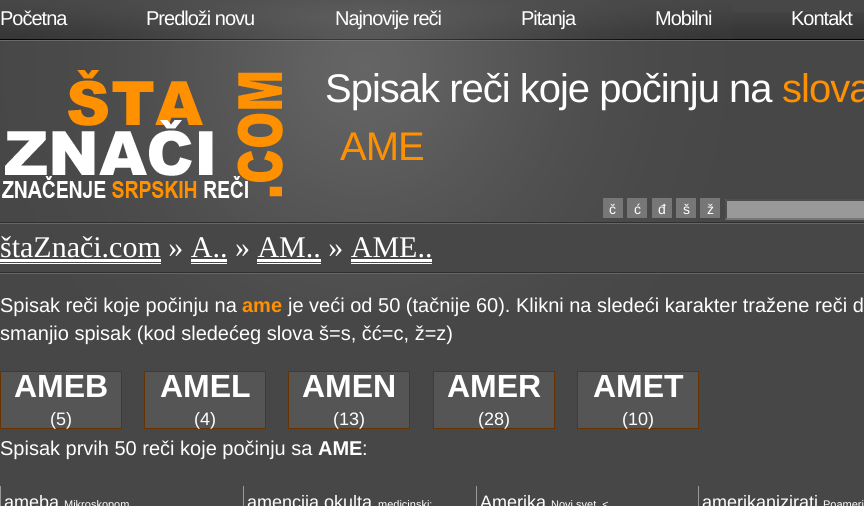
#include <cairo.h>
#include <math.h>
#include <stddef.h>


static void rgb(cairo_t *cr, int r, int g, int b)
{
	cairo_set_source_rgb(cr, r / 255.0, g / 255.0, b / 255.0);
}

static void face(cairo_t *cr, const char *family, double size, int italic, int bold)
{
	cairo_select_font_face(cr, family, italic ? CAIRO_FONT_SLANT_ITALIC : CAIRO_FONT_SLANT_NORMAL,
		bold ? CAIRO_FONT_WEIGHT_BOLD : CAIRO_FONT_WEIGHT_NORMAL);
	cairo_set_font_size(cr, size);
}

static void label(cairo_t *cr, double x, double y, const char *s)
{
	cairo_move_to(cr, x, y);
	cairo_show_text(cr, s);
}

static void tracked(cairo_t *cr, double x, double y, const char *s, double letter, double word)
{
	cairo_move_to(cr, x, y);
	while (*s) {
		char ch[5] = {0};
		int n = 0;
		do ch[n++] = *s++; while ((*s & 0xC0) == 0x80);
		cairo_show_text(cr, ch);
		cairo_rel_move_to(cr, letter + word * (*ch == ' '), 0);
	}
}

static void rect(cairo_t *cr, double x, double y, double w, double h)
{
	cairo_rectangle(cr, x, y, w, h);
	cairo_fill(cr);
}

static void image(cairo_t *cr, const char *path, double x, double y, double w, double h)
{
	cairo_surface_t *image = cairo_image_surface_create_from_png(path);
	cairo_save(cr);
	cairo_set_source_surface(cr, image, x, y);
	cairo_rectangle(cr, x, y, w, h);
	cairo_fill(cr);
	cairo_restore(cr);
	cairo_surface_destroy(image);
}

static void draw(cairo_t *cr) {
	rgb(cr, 71, 71, 71);
	cairo_paint(cr);
	image(cr, "image0.png", 733, 12, 131, 29);
	image(cr, "image1.png", 0, 0, 733, 310);
	face(cr, "Liberation Sans", 20, 0, 0);
	rgb(cr, 255, 255, 255);
	tracked(cr, 0, 25, "Početna", -1, 0);
	tracked(cr, 146, 25, "Predloži novu", -1, 0);
	tracked(cr, 335, 25, "Najnovije reči", -1, 0);
	tracked(cr, 521, 25, "Pitanja", -1, 0);
	tracked(cr, 655, 25, "Mobilni", -1, 0);
	tracked(cr, 791, 25, "Kontakt", -1, 0);
	image(cr, "image2.png", 2, 70, 281, 128);
	face(cr, "Liberation Sans", 40, 0, 0);
	tracked(cr, 325, 102, "Spisak reči koje počinju na", -1, 0);
	rgb(cr, 255, 144, 0);
	tracked(cr, 782, 102, "slova", -1, 0);
	tracked(cr, 340, 160, "AME", -1, 0);
	rgb(cr, 119, 119, 119);
	rect(cr, 603, 198, 20, 20);
	face(cr, "Liberation Sans", 14, 0, 0);
	rgb(cr, 255, 255, 255);
	label(cr, 609, 214, "č");
	rgb(cr, 119, 119, 119);
	rect(cr, 627, 198, 20, 20);
	rgb(cr, 255, 255, 255);
	label(cr, 634, 214, "ć");
	rgb(cr, 119, 119, 119);
	rect(cr, 652, 198, 20, 20);
	rgb(cr, 255, 255, 255);
	label(cr, 658, 214, "đ");
	rgb(cr, 119, 119, 119);
	rect(cr, 676, 198, 20, 20);
	rgb(cr, 255, 255, 255);
	label(cr, 683, 214, "š");
	rgb(cr, 119, 119, 119);
	rect(cr, 700, 198, 20, 20);
	rgb(cr, 255, 255, 255);
	label(cr, 707, 214, "ž");
	rgb(cr, 153, 153, 153);
	rect(cr, 725, 199, 139, 21);
	rgb(cr, 79, 79, 79);
	cairo_new_path(cr);
	cairo_move_to(cr, 725, 199);
	cairo_line_to(cr, 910, 199);
	cairo_line_to(cr, 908, 201);
	cairo_line_to(cr, 727, 201);
	cairo_close_path(cr);
	cairo_fill(cr);
	rgb(cr, 118, 118, 118);
	cairo_new_path(cr);
	cairo_move_to(cr, 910, 220);
	cairo_line_to(cr, 725, 220);
	cairo_line_to(cr, 727, 218);
	cairo_line_to(cr, 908, 218);
	cairo_close_path(cr);
	cairo_fill(cr);
	rgb(cr, 79, 79, 79);
	cairo_new_path(cr);
	cairo_move_to(cr, 725, 220);
	cairo_line_to(cr, 725, 199);
	cairo_line_to(cr, 727, 201);
	cairo_line_to(cr, 727, 218);
	cairo_close_path(cr);
	cairo_fill(cr);
	image(cr, "image3.png", 0, 222, 864, 52);
	face(cr, "Liberation Serif", 30, 0, 0);
	rgb(cr, 255, 255, 255);
	label(cr, 0, 257, "štaZnači.com » A.. » AM.. » AME..");
	rect(cr, 0, 263, 161, 1);
	rect(cr, 0, 259, 161, 3);
	rect(cr, 191, 259, 36, 3);
	rect(cr, 257, 259, 64, 3);
	rect(cr, 351, 259, 81, 3);
	rect(cr, 191, 263, 36, 1);
	rect(cr, 257, 263, 64, 1);
	rect(cr, 351, 263, 81, 1);
	face(cr, "Liberation Sans", 20, 0, 0);
	label(cr, 0, 312, "Spisak reči koje počinju na");
	face(cr, "Liberation Sans", 20, 0, 1);
	rgb(cr, 255, 144, 0);
	label(cr, 242, 312, "ame");
	face(cr, "Liberation Sans", 20, 0, 0);
	rgb(cr, 255, 255, 255);
	label(cr, 288, 312, "je veći od 50 (tačnije 60). Klikni na sledeći karakter tražene reči d");
	label(cr, 0, 340, "smanjio spisak (kod sledećeg slova š=s, čć=c, ž=z)");
	rgb(cr, 85, 85, 85);
	cairo_rectangle(cr, 0.5, 371.5, 121, 57);
	cairo_fill_preserve(cr);
	rgb(cr, 102, 51, 0);
	cairo_set_line_width(cr, 1);
	cairo_stroke(cr);
	face(cr, "Liberation Sans", 32, 0, 1);
	rgb(cr, 255, 255, 255);
	label(cr, 14, 397, "AMEB");
	face(cr, "Liberation Sans", 18, 0, 0);
	label(cr, 50, 425, "(5)");
	rgb(cr, 85, 85, 85);
	cairo_rectangle(cr, 144.5, 371.5, 121, 57);
	cairo_fill_preserve(cr);
	rgb(cr, 102, 51, 0);
	cairo_stroke(cr);
	face(cr, "Liberation Sans", 32, 0, 1);
	rgb(cr, 255, 255, 255);
	label(cr, 160, 397, "AMEL");
	face(cr, "Liberation Sans", 18, 0, 0);
	label(cr, 194, 425, "(4)");
	rgb(cr, 85, 85, 85);
	cairo_rectangle(cr, 288.5, 371.5, 121, 57);
	cairo_fill_preserve(cr);
	rgb(cr, 102, 51, 0);
	cairo_stroke(cr);
	face(cr, "Liberation Sans", 32, 0, 1);
	rgb(cr, 255, 255, 255);
	label(cr, 302, 397, "AMEN");
	face(cr, "Liberation Sans", 18, 0, 0);
	label(cr, 333, 425, "(13)");
	rgb(cr, 85, 85, 85);
	cairo_rectangle(cr, 433.5, 371.5, 121, 57);
	cairo_fill_preserve(cr);
	rgb(cr, 102, 51, 0);
	cairo_stroke(cr);
	face(cr, "Liberation Sans", 32, 0, 1);
	rgb(cr, 255, 255, 255);
	label(cr, 447, 397, "AMER");
	face(cr, "Liberation Sans", 18, 0, 0);
	label(cr, 478, 425, "(28)");
	rgb(cr, 85, 85, 85);
	cairo_rectangle(cr, 577.5, 371.5, 121, 57);
	cairo_fill_preserve(cr);
	rgb(cr, 102, 51, 0);
	cairo_stroke(cr);
	face(cr, "Liberation Sans", 32, 0, 1);
	rgb(cr, 255, 255, 255);
	label(cr, 593, 397, "AMET");
	face(cr, "Liberation Sans", 18, 0, 0);
	label(cr, 622, 425, "(10)");
	face(cr, "Liberation Sans", 20, 0, 0);
	label(cr, 0, 455, "Spisak prvih 50 reči koje počinju sa");
	face(cr, "Liberation Sans", 20, 0, 1);
	label(cr, 318, 455, "AME");
	face(cr, "Liberation Sans", 20, 0, 0);
	label(cr, 362, 455, ":");
	rgb(cr, 153, 153, 153);
	rect(cr, 0, 486, 1, 20);
	face(cr, "Liberation Sans", 18, 0, 0);
	rgb(cr, 255, 255, 255);
	label(cr, 4, 508, "ameba");
	face(cr, "Liberation Sans", 11, 0, 0);
	label(cr, 64, 508, "Mikroskopom");
	rgb(cr, 153, 153, 153);
	rect(cr, 243, 486, 1, 20);
	face(cr, "Liberation Sans", 18, 0, 0);
	rgb(cr, 255, 255, 255);
	label(cr, 247, 508, "amencija okulta");
	face(cr, "Liberation Sans", 11, 0, 0);
	label(cr, 378, 508, "medicinski:");
	rgb(cr, 153, 153, 153);
	rect(cr, 476, 486, 1, 20);
	face(cr, "Liberation Sans", 18, 0, 0);
	rgb(cr, 255, 255, 255);
	label(cr, 480, 508, "Amerika");
	face(cr, "Liberation Sans", 11, 0, 0);
	label(cr, 551, 508, "Novi svet. <");
	rgb(cr, 153, 153, 153);
	rect(cr, 698, 486, 1, 20);
	face(cr, "Liberation Sans", 18, 0, 0);
	rgb(cr, 255, 255, 255);
	label(cr, 702, 508, "amerikanizirati");
	face(cr, "Liberation Sans", 11, 0, 0);
	label(cr, 823, 508, "Poameri");
}

int main(void) {
	cairo_surface_t *surface = cairo_image_surface_create(CAIRO_FORMAT_RGB24, 864, 506);
	cairo_t *cr = cairo_create(surface);
	cairo_font_options_t *options = cairo_font_options_create();
	cairo_font_options_set_hint_metrics(options, CAIRO_HINT_METRICS_OFF);
	cairo_font_options_set_hint_style(options, CAIRO_HINT_STYLE_NONE);
	cairo_set_font_options(cr, options);
	cairo_set_miter_limit(cr, 4);
	draw(cr);
	cairo_surface_write_to_png(surface, "render.png");
	cairo_font_options_destroy(options);
	cairo_destroy(cr);
	cairo_surface_destroy(surface);
	return 0;
}
